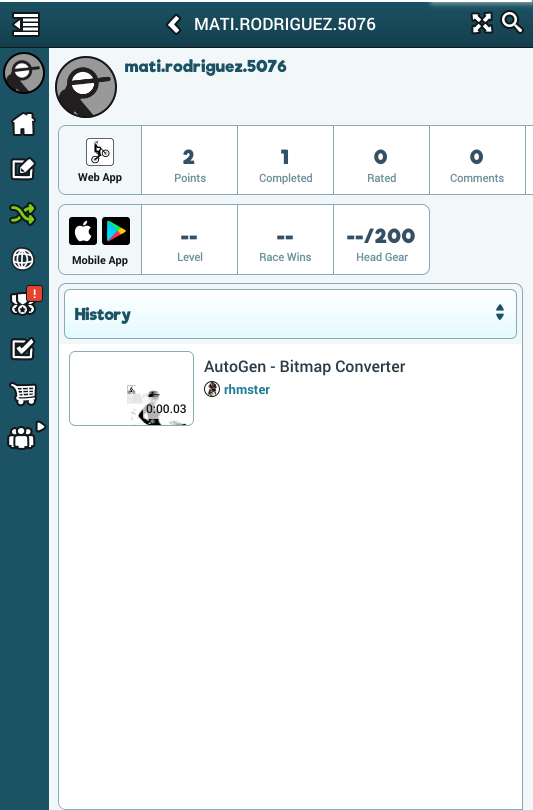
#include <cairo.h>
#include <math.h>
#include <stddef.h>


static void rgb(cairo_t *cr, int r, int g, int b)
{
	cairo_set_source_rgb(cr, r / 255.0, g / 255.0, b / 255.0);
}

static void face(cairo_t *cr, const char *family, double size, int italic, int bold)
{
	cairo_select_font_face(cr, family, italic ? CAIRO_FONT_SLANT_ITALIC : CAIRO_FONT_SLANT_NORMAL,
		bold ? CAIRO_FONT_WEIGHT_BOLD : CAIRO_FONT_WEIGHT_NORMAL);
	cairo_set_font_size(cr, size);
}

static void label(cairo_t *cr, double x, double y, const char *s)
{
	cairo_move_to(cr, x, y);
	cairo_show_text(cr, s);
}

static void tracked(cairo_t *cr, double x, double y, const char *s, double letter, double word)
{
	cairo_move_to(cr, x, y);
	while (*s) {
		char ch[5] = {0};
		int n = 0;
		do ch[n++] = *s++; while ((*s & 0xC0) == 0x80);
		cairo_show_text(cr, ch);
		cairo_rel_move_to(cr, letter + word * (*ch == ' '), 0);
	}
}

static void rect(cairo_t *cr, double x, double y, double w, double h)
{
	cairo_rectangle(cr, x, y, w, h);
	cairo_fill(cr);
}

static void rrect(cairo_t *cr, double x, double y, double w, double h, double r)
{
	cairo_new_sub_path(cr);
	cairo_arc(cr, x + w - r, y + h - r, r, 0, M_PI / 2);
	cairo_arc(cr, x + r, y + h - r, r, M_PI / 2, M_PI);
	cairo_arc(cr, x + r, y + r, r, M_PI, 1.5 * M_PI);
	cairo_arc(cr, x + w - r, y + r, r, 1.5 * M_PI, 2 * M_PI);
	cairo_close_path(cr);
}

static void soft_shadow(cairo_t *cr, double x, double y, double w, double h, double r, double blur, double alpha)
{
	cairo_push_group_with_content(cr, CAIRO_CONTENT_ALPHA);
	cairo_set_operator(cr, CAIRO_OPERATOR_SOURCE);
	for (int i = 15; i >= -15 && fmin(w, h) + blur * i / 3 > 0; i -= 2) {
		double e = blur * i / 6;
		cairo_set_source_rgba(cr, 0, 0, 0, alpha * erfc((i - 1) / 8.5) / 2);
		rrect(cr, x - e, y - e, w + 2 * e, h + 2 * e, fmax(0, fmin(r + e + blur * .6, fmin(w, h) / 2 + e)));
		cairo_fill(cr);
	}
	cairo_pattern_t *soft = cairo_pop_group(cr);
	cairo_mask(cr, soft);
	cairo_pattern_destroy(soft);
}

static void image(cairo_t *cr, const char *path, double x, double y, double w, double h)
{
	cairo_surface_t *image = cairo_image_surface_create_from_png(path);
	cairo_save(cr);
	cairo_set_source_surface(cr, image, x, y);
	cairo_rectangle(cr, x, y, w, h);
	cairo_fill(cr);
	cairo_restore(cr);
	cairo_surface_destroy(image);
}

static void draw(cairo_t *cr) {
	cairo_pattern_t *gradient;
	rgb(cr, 242, 247, 249);
	cairo_paint(cr);
	gradient = cairo_pattern_create_linear(267, 0, 267, 47);
	cairo_pattern_add_color_stop_rgba(gradient, 0, 0.106, 0.322, 0.392, 1);
	cairo_pattern_add_color_stop_rgba(gradient, 1, 0.078, 0.247, 0.302, 1);
	cairo_set_source(cr, gradient);
	cairo_pattern_destroy(gradient);
	rect(cr, 0, 0, 533, 47);
	rgb(cr, 255, 255, 255);
	rrect(cr, -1, 0, 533, 2, 1);
	cairo_fill(cr);
	image(cr, "image2.png", 470, 11, 24, 24);
	image(cr, "image3.png", 500, 10, 24, 24);
	cairo_save(cr);
	cairo_rectangle(cr, 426, 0, 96, 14);
	cairo_clip(cr);
	cairo_set_fill_rule(cr, CAIRO_FILL_RULE_EVEN_ODD);
	cairo_new_path(cr);
	cairo_move_to(cr, 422, 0);
	cairo_line_to(cr, 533, 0);
	cairo_line_to(cr, 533, 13);
	cairo_line_to(cr, 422, 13);
	cairo_close_path(cr);
	cairo_move_to(cr, 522, 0);
	cairo_curve_to(cr, 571.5, 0, 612, 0.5, 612, 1);
	cairo_curve_to(cr, 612, 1.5, 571.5, 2, 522, 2);
	cairo_curve_to(cr, 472.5, 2, 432, 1.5, 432, 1);
	cairo_curve_to(cr, 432, 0.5, 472.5, 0, 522, 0);
	cairo_close_path(cr);
	cairo_clip(cr);
	rgb(cr, 255, 255, 255);
	soft_shadow(cr, 432, -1, 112, 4, 2, 3, 0.6);
	cairo_restore(cr);
	cairo_save(cr);
	cairo_rectangle(cr, 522, 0, 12, 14);
	cairo_clip(cr);
	cairo_set_fill_rule(cr, CAIRO_FILL_RULE_EVEN_ODD);
	cairo_new_path(cr);
	cairo_move_to(cr, 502, 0);
	cairo_line_to(cr, 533, 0);
	cairo_line_to(cr, 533, 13);
	cairo_line_to(cr, 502, 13);
	cairo_close_path(cr);
	cairo_move_to(cr, 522, 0);
	cairo_curve_to(cr, 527.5, 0, 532, 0.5, 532, 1);
	cairo_curve_to(cr, 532, 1.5, 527.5, 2, 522, 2);
	cairo_curve_to(cr, 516.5, 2, 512, 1.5, 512, 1);
	cairo_curve_to(cr, 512, 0.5, 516.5, 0, 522, 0);
	cairo_close_path(cr);
	cairo_clip(cr);
	rgb(cr, 255, 255, 255);
	soft_shadow(cr, 512, -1, 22, 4, 2, 3, 0.6);
	cairo_restore(cr);
	rgb(cr, 17, 24, 28);
	rect(cr, 0, 47, 533, 1);
	image(cr, "image0.png", 12, 12, 28, 25);
	image(cr, "image1.png", 166, 14, 16, 21);
	face(cr, "Roboto Medium", 17, 0, 0);
	rgb(cr, 255, 255, 255);
	label(cr, 194, 30, "MATI.RODRIGUEZ.5076");
	rgb(cr, 27, 82, 100);
	rect(cr, 0, 48, 49, 762);
	image(cr, "image4.png", 4, 53, 40, 40);
	cairo_arc(cr, 24, 73, 20, 0, 2 * M_PI);
	rgb(cr, 0, 0, 0);
	cairo_stroke(cr);
	image(cr, "image5.png", 11, 112, 25, 24);
	image(cr, "image6.png", 10, 157, 26, 24);
	image(cr, "image7.png", 9, 202, 28, 24);
	image(cr, "image8.png", 11, 247, 24, 24);
	image(cr, "image9.png", 10, 292, 26, 24);
	rgb(cr, 229, 67, 47);
	rrect(cr, 26.5, 285.5, 16, 16, 2.5);
	cairo_fill_preserve(cr);
	rgb(cr, 17, 24, 28);
	cairo_set_line_width(cr, 1);
	cairo_stroke(cr);
	face(cr, "Roboto", 12, 0, 1);
	rgb(cr, 255, 255, 255);
	tracked(cr, 33, 298, "!", 1, 0);
	image(cr, "image10.png", 10, 337, 26, 24);
	image(cr, "image11.png", 9, 382, 28, 25);
	image(cr, "image12.png", 7, 426, 29, 24);
	image(cr, "image13.png", 35, 420, 12, 13);
	image(cr, "image14.png", 55, 56, 62, 62);
	cairo_arc(cr, 86, 87, 30, 0, 2 * M_PI);
	rgb(cr, 17, 24, 28);
	cairo_set_line_width(cr, 2);
	cairo_stroke(cr);
	face(cr, "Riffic", 16, 0, 1);
	rgb(cr, 27, 82, 100);
	tracked(cr, 125, 72, "mati.rodriguez.5076", 0.5, 0);
	rgb(cr, 255, 255, 255);
	cairo_new_path(cr);
	cairo_move_to(cr, 66, 125);
	cairo_line_to(cr, 533, 125);
	cairo_line_to(cr, 533, 195);
	cairo_line_to(cr, 66, 195);
	cairo_curve_to(cr, 61.5, 195, 58, 191.5, 58, 187);
	cairo_line_to(cr, 58, 133);
	cairo_curve_to(cr, 58, 128.5, 61.5, 125, 66, 125);
	cairo_close_path(cr);
	cairo_fill(cr);
	rrect(cr, 58.5, 125.5, 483, 69, 7.5);
	rgb(cr, 133, 171, 181);
	cairo_set_line_width(cr, 1);
	cairo_stroke(cr);
	rgb(cr, 242, 247, 249);
	cairo_new_path(cr);
	cairo_move_to(cr, 67, 126);
	cairo_line_to(cr, 141, 126);
	cairo_line_to(cr, 141, 194);
	cairo_line_to(cr, 67, 194);
	cairo_curve_to(cr, 62.5, 194, 59, 190.5, 59, 186);
	cairo_line_to(cr, 59, 134);
	cairo_curve_to(cr, 59, 129.5, 62.5, 126, 67, 126);
	cairo_close_path(cr);
	cairo_fill(cr);
	image(cr, "image15.png", 86, 138, 28, 28);
	face(cr, "Roboto", 11, 0, 1);
	rgb(cr, 17, 24, 28);
	label(cr, 78, 181, "Web App");
	rgb(cr, 138, 168, 176);
	rect(cr, 141, 126, 1, 69);
	face(cr, "Riffic", 19, 0, 1);
	rgb(cr, 54, 80, 99);
	tracked(cr, 183, 164, "2", 1, 0);
	face(cr, "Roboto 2", 11, 0, 1);
	rgb(cr, 110, 148, 158);
	label(cr, 174, 182, "Points");
	rgb(cr, 138, 168, 176);
	rect(cr, 237, 126, 1, 69);
	face(cr, "Riffic", 19, 0, 1);
	rgb(cr, 54, 80, 99);
	tracked(cr, 281, 164, "1", 1, 0);
	face(cr, "Roboto 2", 11, 0, 1);
	rgb(cr, 110, 148, 158);
	label(cr, 259, 182, "Completed");
	rgb(cr, 138, 168, 176);
	rect(cr, 333, 126, 1, 69);
	face(cr, "Riffic", 19, 0, 1);
	rgb(cr, 54, 80, 99);
	tracked(cr, 374, 164, "0", 1, 0);
	face(cr, "Roboto 2", 11, 0, 1);
	rgb(cr, 110, 148, 158);
	label(cr, 367, 182, "Rated");
	rgb(cr, 138, 168, 176);
	rect(cr, 429, 126, 1, 69);
	face(cr, "Riffic", 19, 0, 1);
	rgb(cr, 54, 80, 99);
	tracked(cr, 470, 164, "0", 1, 0);
	face(cr, "Roboto 2", 11, 0, 1);
	rgb(cr, 110, 148, 158);
	label(cr, 450, 182, "Comments");
	rgb(cr, 138, 168, 176);
	rect(cr, 525, 126, 1, 69);
	rgb(cr, 255, 255, 255);
	rrect(cr, 58.5, 204.5, 371, 70, 7.5);
	cairo_fill_preserve(cr);
	rgb(cr, 133, 171, 181);
	cairo_stroke(cr);
	rgb(cr, 242, 247, 249);
	cairo_new_path(cr);
	cairo_move_to(cr, 67, 205);
	cairo_line_to(cr, 141, 205);
	cairo_line_to(cr, 141, 273);
	cairo_line_to(cr, 67, 273);
	cairo_curve_to(cr, 62.5, 273, 59, 269.5, 59, 265);
	cairo_line_to(cr, 59, 213);
	cairo_curve_to(cr, 59, 208.5, 62.5, 205, 67, 205);
	cairo_close_path(cr);
	cairo_fill(cr);
	image(cr, "image16.png", 69, 217, 28, 28);
	image(cr, "image17.png", 102, 217, 28, 28);
	face(cr, "Roboto", 11, 0, 1);
	rgb(cr, 17, 24, 28);
	label(cr, 72, 264, "Mobile App");
	rgb(cr, 138, 168, 176);
	rect(cr, 141, 205, 1, 69);
	face(cr, "Riffic", 19, 0, 1);
	rgb(cr, 54, 80, 99);
	tracked(cr, 181, 243, "--", 1, 0);
	face(cr, "Roboto 2", 11, 0, 1);
	rgb(cr, 110, 148, 158);
	label(cr, 177, 261, "Level");
	rgb(cr, 138, 168, 176);
	rect(cr, 237, 205, 1, 69);
	face(cr, "Riffic", 19, 0, 1);
	rgb(cr, 54, 80, 99);
	tracked(cr, 277, 243, "--", 1, 0);
	face(cr, "Roboto 2", 11, 0, 1);
	rgb(cr, 110, 148, 158);
	label(cr, 259, 261, "Race Wins");
	rgb(cr, 138, 168, 176);
	rect(cr, 333, 205, 1, 69);
	face(cr, "Riffic", 19, 0, 1);
	rgb(cr, 54, 80, 99);
	tracked(cr, 347, 243, "--/200", 1, 0);
	face(cr, "Roboto 2", 11, 0, 1);
	rgb(cr, 110, 148, 158);
	label(cr, 356, 261, "Head Gear");
	cairo_new_path(cr);
	cairo_move_to(cr, 66, 283.5);
	cairo_line_to(cr, 515, 283.5);
	cairo_curve_to(cr, 519, 283.5, 522.5, 287, 522.5, 291);
	cairo_line_to(cr, 522.5, 809.5);
	cairo_line_to(cr, 66, 809.5);
	cairo_curve_to(cr, 62, 809.5, 58.5, 806, 58.5, 802);
	cairo_line_to(cr, 58.5, 291);
	cairo_curve_to(cr, 58.5, 287, 62, 283.5, 66, 283.5);
	cairo_close_path(cr);
	rgb(cr, 133, 171, 181);
	cairo_stroke(cr);
	cairo_save(cr);
	rrect(cr, 64, 289, 453, 50, 6);
	cairo_clip(cr);
	gradient = cairo_pattern_create_linear(291, 290, 291, 338);
	cairo_pattern_add_color_stop_rgba(gradient, 0, 1, 1, 1, 1);
	cairo_pattern_add_color_stop_rgba(gradient, 1, 0.894, 0.98, 1, 1);
	cairo_set_source(cr, gradient);
	cairo_pattern_destroy(gradient);
	rect(cr, 64, 290, 453, 48);
	cairo_restore(cr);
	rrect(cr, 64.5, 289.5, 452, 49, 5.5);
	cairo_stroke(cr);
	face(cr, "Riffic", 16, 0, 1);
	rgb(cr, 27, 82, 100);
	label(cr, 75, 320, "History");
	image(cr, "image18.png", 496, 304, 8, 17);
	rgb(cr, 255, 255, 255);
	cairo_new_path(cr);
	cairo_move_to(cr, 59, 344);
	cairo_line_to(cr, 522, 344);
	cairo_line_to(cr, 522, 809);
	cairo_line_to(cr, 66, 809);
	cairo_curve_to(cr, 62, 809, 59, 806, 59, 802);
	cairo_close_path(cr);
	cairo_fill(cr);
	face(cr, "Roboto Medium", 16, 0, 0);
	rgb(cr, 43, 59, 70);
	label(cr, 204, 372, "AutoGen - Bitmap Converter");
	image(cr, "image19.png", 207, 381, 11, 16);
	cairo_arc(cr, 212, 389, 7.5, 0, 2 * M_PI);
	rgb(cr, 17, 24, 28);
	cairo_stroke(cr);
	face(cr, "Roboto", 13, 0, 1);
	rgb(cr, 29, 125, 150);
	label(cr, 224, 394, "rhmster");
	rgb(cr, 133, 171, 181);
	cairo_new_path(cr);
	cairo_move_to(cr, 75, 351);
	cairo_line_to(cr, 188, 351);
	cairo_curve_to(cr, 191, 351, 194, 354, 194, 357);
	cairo_line_to(cr, 194, 420);
	cairo_curve_to(cr, 194, 423, 191, 426, 188, 426);
	cairo_line_to(cr, 75, 426);
	cairo_curve_to(cr, 72, 426, 69, 423, 69, 420);
	cairo_line_to(cr, 69, 357);
	cairo_curve_to(cr, 69, 354, 72, 351, 75, 351);
	cairo_close_path(cr);
	cairo_fill(cr);
	image(cr, "image20.png", 70, 352, 123, 73);
	cairo_set_source_rgba(cr, 1, 1, 1, 0.7);
	rrect(cr, 143, 397, 47, 22, 2);
	cairo_fill(cr);
	face(cr, "Roboto Medium", 12, 0, 0);
	rgb(cr, 17, 24, 28);
	label(cr, 146, 413, "0:00.03");
}

int main(void) {
	cairo_surface_t *surface = cairo_image_surface_create(CAIRO_FORMAT_RGB24, 533, 810);
	cairo_t *cr = cairo_create(surface);
	cairo_font_options_t *options = cairo_font_options_create();
	cairo_font_options_set_hint_metrics(options, CAIRO_HINT_METRICS_OFF);
	cairo_font_options_set_hint_style(options, CAIRO_HINT_STYLE_NONE);
	cairo_set_font_options(cr, options);
	cairo_set_miter_limit(cr, 4);
	draw(cr);
	cairo_surface_write_to_png(surface, "render.png");
	cairo_font_options_destroy(options);
	cairo_destroy(cr);
	cairo_surface_destroy(surface);
	return 0;
}
